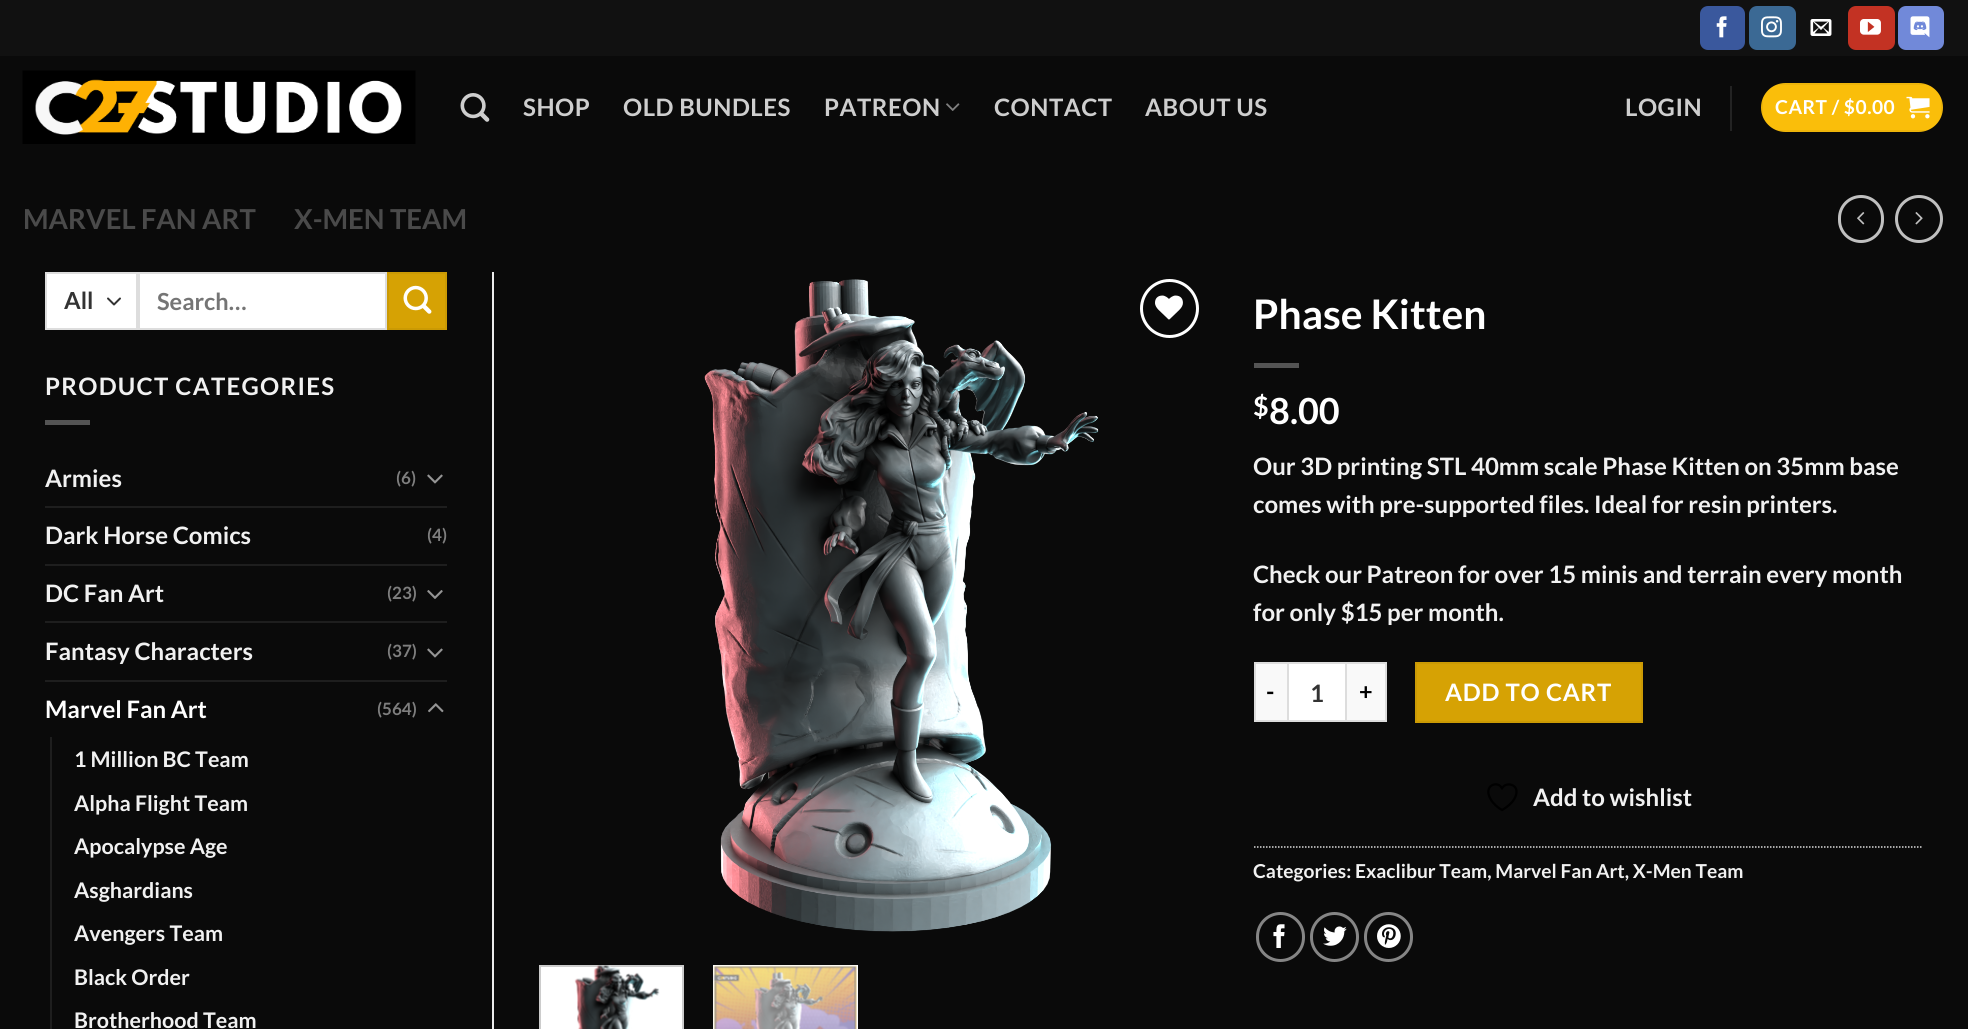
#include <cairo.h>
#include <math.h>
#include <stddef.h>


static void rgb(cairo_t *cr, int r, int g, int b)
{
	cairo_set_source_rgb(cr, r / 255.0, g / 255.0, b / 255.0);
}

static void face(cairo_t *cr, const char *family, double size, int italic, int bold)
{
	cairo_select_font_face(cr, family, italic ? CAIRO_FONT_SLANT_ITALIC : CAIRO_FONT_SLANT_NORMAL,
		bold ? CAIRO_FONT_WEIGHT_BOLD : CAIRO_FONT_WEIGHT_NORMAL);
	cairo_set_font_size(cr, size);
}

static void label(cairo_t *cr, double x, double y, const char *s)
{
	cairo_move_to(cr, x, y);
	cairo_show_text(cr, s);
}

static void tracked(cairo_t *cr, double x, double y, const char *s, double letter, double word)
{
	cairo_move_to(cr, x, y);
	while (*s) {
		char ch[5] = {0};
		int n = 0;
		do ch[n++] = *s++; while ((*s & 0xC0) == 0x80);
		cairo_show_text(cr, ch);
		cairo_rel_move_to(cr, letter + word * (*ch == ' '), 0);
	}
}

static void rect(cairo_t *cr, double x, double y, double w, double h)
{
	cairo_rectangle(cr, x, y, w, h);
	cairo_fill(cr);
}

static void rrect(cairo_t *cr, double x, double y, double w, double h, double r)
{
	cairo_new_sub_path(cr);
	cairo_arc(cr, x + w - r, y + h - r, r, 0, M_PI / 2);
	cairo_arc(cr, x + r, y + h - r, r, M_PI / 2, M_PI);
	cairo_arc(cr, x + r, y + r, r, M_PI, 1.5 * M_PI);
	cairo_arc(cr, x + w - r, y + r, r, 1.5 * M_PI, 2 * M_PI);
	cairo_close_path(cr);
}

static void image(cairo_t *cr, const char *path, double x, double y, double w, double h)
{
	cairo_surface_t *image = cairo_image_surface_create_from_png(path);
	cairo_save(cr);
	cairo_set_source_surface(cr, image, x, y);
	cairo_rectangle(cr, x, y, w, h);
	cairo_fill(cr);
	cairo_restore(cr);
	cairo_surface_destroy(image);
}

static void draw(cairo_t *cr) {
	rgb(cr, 10, 10, 10);
	cairo_paint(cr);
	rgb(cr, 17, 17, 17);
	rect(cr, 0, 0, 1968, 56);
	rgb(cr, 58, 88, 157);
	rrect(cr, 1701, 7, 43, 42, 7);
	cairo_fill_preserve(cr);
	cairo_stroke(cr);
	image(cr, "image0.png", 1716, 16, 11, 22);
	rgb(cr, 59, 105, 148);
	rrect(cr, 1750, 7, 45, 42, 7);
	cairo_fill_preserve(cr);
	cairo_stroke(cr);
	image(cr, "image1.png", 1761, 16, 21, 22);
	image(cr, "image2.png", 1810, 19, 22, 17);
	rgb(cr, 195, 50, 35);
	rrect(cr, 1849, 7, 45, 42, 7);
	cairo_fill_preserve(cr);
	cairo_stroke(cr);
	image(cr, "image3.png", 1860, 19, 21, 16);
	rgb(cr, 113, 137, 217);
	rrect(cr, 1899, 7, 44, 42, 7);
	cairo_fill_preserve(cr);
	cairo_stroke(cr);
	image(cr, "image4.png", 1910, 16, 20, 22);
	image(cr, "image5.png", 22, 70, 394, 74);
	image(cr, "image6.png", 460, 93, 30, 29);
	face(cr, "Lato", 24, 0, 1);
	rgb(cr, 206, 206, 206);
	tracked(cr, 523, 116, "SHOP", 0.5, 0);
	tracked(cr, 623, 116, "OLD BUNDLES", 0.5, 0);
	tracked(cr, 824, 116, "PATREON", 0.5, 0);
	image(cr, "image7.png", 946, 103, 14, 8);
	tracked(cr, 994, 116, "CONTACT", 0.5, 0);
	tracked(cr, 1145, 116, "ABOUT US", 0.5, 0);
	tracked(cr, 1625, 116, "LOGIN", 0.5, 0);
	rgb(cr, 35, 35, 35);
	rect(cr, 1730, 86, 2, 45);
	rgb(cr, 250, 190, 10);
	rrect(cr, 1761, 83, 182, 49, 24.5);
	cairo_fill(cr);
	cairo_rectangle(cr, 1762, 84, 180, 47);
	cairo_set_source_rgba(cr, 0, 0, 0, 0.05);
	cairo_stroke(cr);
	face(cr, "Lato", 19.2, 0, 1);
	rgb(cr, 255, 255, 255);
	tracked(cr, 1775, 114, "CART / $0.00", 0.5, 0);
	image(cr, "image8.png", 1906, 96, 24, 23);
	face(cr, "Lato", 27.5, 0, 1);
	rgb(cr, 74, 74, 74);
	label(cr, 23, 229, "MARVEL FAN ART");
	label(cr, 294, 229, "X-MEN TEAM");
	rrect(cr, 1839.5, 196.5, 43, 45, 21.5);
	rgb(cr, 192, 192, 192);
	cairo_set_line_width(cr, 3);
	cairo_stroke(cr);
	image(cr, "image9.png", 1857, 212, 8, 13);
	cairo_arc(cr, 1919, 219, 22.5, 0, 2 * M_PI);
	cairo_stroke(cr);
	image(cr, "image10.png", 1915, 212, 8, 13);
	rgb(cr, 255, 255, 255);
	rect(cr, 47, 274, 89, 54);
	cairo_new_path(cr);
	cairo_move_to(cr, 108, 298.5);
	cairo_line_to(cr, 114, 304.5);
	cairo_line_to(cr, 120, 298.5);
	rgb(cr, 51, 51, 51);
	cairo_set_line_width(cr, 2);
	cairo_set_line_cap(cr, CAIRO_LINE_CAP_ROUND);
	cairo_set_line_join(cr, CAIRO_LINE_JOIN_ROUND);
	cairo_stroke(cr);
	cairo_rectangle(cr, 46, 273, 91, 56);
	rgb(cr, 221, 221, 221);
	cairo_set_line_cap(cr, CAIRO_LINE_CAP_BUTT);
	cairo_set_line_join(cr, CAIRO_LINE_JOIN_MITER);
	cairo_stroke(cr);
	face(cr, "Lato", 23.5, 0, 1);
	rgb(cr, 51, 51, 51);
	label(cr, 64, 309, "All");
	rgb(cr, 255, 255, 255);
	cairo_rectangle(cr, 139, 273, 247, 56);
	cairo_fill_preserve(cr);
	rgb(cr, 221, 221, 221);
	cairo_stroke(cr);
	rgb(cr, 117, 117, 117);
	label(cr, 157, 310, "Search…");
	rgb(cr, 214, 162, 4);
	cairo_rectangle(cr, 388, 273, 58, 56);
	cairo_fill_preserve(cr);
	rgb(cr, 203, 154, 4);
	cairo_stroke(cr);
	image(cr, "image11.png", 403, 285, 29, 29);
	face(cr, "Lato", 24, 0, 1);
	rgb(cr, 241, 241, 241);
	tracked(cr, 45, 395, "PRODUCT CATEGORIES", 1.25, 0);
	rgb(cr, 84, 84, 84);
	rect(cr, 45, 420, 45, 5);
	rgb(cr, 241, 241, 241);
	label(cr, 45, 487, "Armies");
	face(cr, "Lato", 17, 0, 1);
	rgb(cr, 126, 126, 126);
	label(cr, 396, 484, "(6)");
	image(cr, "image12.png", 427, 474, 16, 10);
	rgb(cr, 30, 30, 30);
	rect(cr, 45, 506, 402, 2);
	face(cr, "Lato", 24, 0, 1);
	rgb(cr, 241, 241, 241);
	label(cr, 45, 544, "Dark Horse Comics");
	face(cr, "Lato", 17, 0, 1);
	rgb(cr, 126, 126, 126);
	label(cr, 427, 541, "(4)");
	rgb(cr, 30, 30, 30);
	rect(cr, 45, 564, 402, 2);
	face(cr, "Lato", 24, 0, 1);
	rgb(cr, 241, 241, 241);
	label(cr, 45, 602, "DC Fan Art");
	face(cr, "Lato", 17, 0, 1);
	rgb(cr, 126, 126, 126);
	label(cr, 387, 599, "(23)");
	image(cr, "image13.png", 427, 590, 16, 9);
	rgb(cr, 30, 30, 30);
	rect(cr, 45, 621, 402, 2);
	face(cr, "Lato", 24, 0, 1);
	rgb(cr, 241, 241, 241);
	label(cr, 45, 660, "Fantasy Characters");
	face(cr, "Lato", 17, 0, 1);
	rgb(cr, 126, 126, 126);
	label(cr, 387, 657, "(37)");
	image(cr, "image12.png", 427, 648, 16, 10);
	rgb(cr, 30, 30, 30);
	rect(cr, 45, 680, 402, 2);
	face(cr, "Lato", 24, 0, 1);
	rgb(cr, 255, 255, 255);
	label(cr, 45, 718, "Marvel Fan Art");
	face(cr, "Lato", 17, 0, 1);
	rgb(cr, 126, 126, 126);
	label(cr, 377, 715, "(564)");
	image(cr, "image14.png", 428, 703, 16, 10);
	rgb(cr, 30, 30, 30);
	rect(cr, 50, 737, 2, 292);
	face(cr, "Lato", 21.5, 0, 1);
	rgb(cr, 241, 241, 241);
	label(cr, 74, 767, "1 Million BC Team");
	label(cr, 74, 811, "Alpha Flight Team");
	label(cr, 74, 854, "Apocalypse Age");
	label(cr, 74, 898, "Asghardians");
	label(cr, 74, 941, "Avengers Team");
	label(cr, 74, 985, "Black Order");
	label(cr, 74, 1028, "Brotherhood Team");
	rgb(cr, 236, 236, 236);
	rect(cr, 492, 272, 2, 757);
	image(cr, "image15.png", 704, 279, 395, 653);
	cairo_arc(cr, 1169.5, 308.5, 28, 0, 2 * M_PI);
	rgb(cr, 255, 255, 255);
	cairo_set_line_width(cr, 3);
	cairo_stroke(cr);
	image(cr, "image16.png", 1155, 295, 28, 25);
	cairo_rectangle(cr, 540, 966, 143, 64);
	cairo_fill_preserve(cr);
	rgb(cr, 204, 204, 204);
	cairo_set_line_width(cr, 2);
	cairo_stroke(cr);
	image(cr, "image17.png", 574, 965, 86, 64);
	rgb(cr, 255, 255, 255);
	rect(cr, 713, 965, 145, 64);
	image(cr, "image18.png", 713, 965, 144, 64);
	face(cr, "Lato", 40.75, 0, 1);
	label(cr, 1253, 329, "Phase Kitten");
	rgb(cr, 84, 84, 84);
	rect(cr, 1254, 363, 45, 5);
	face(cr, "Lato", 27, 0, 1);
	rgb(cr, 255, 255, 255);
	label(cr, 1253, 416, "$");
	face(cr, "Lato", 36, 0, 1);
	label(cr, 1269, 424, "8.00");
	face(cr, "Lato", 24, 0, 1);
	rgb(cr, 241, 241, 241);
	label(cr, 1253, 475, "Our 3D printing STL 40mm scale Phase Kitten on 35mm base");
	label(cr, 1253, 513, "comes with pre-supported files. Ideal for resin printers.");
	label(cr, 1253, 583, "Check our Patreon for over 15 minis and terrain every month");
	label(cr, 1253, 621, "for only $15 per month.");
	rgb(cr, 249, 249, 249);
	rect(cr, 1256, 664, 31, 56);
	rgb(cr, 221, 221, 221);
	rect(cr, 1254, 662, 33, 2);
	rect(cr, 1254, 720, 33, 2);
	rect(cr, 1254, 662, 2, 60);
	face(cr, "Lato", 23.5, 0, 1);
	rgb(cr, 0, 0, 0);
	tracked(cr, 1266, 700, "-", 1, 0);
	rgb(cr, 255, 255, 255);
	cairo_rectangle(cr, 1288, 663, 58, 58);
	cairo_fill_preserve(cr);
	rgb(cr, 221, 221, 221);
	cairo_stroke(cr);
	face(cr, "Lato", 24, 0, 1);
	rgb(cr, 51, 51, 51);
	label(cr, 1310, 702, "1");
	rgb(cr, 249, 249, 249);
	rect(cr, 1347, 664, 38, 56);
	rgb(cr, 221, 221, 221);
	rect(cr, 1347, 662, 39, 2);
	rect(cr, 1385, 662, 2, 60);
	rect(cr, 1347, 720, 39, 2);
	face(cr, "Lato", 23.5, 0, 1);
	rgb(cr, 0, 0, 0);
	tracked(cr, 1359, 700, "+", 1, 0);
	rgb(cr, 214, 162, 4);
	cairo_rectangle(cr, 1416, 663, 226, 59);
	cairo_fill_preserve(cr);
	rgb(cr, 203, 154, 4);
	cairo_stroke(cr);
	face(cr, "Lato", 24, 0, 1);
	rgb(cr, 255, 255, 255);
	tracked(cr, 1445, 701, "ADD TO CART", 0.75, 0);
	cairo_new_path(cr);
	cairo_move_to(cr, 1516.5, 791.5);
	cairo_curve_to(cr, 1516.5, 783.5, 1505, 782, 1502, 788.5);
	cairo_curve_to(cr, 1498.5, 780, 1482.5, 785, 1490.5, 799);
	cairo_curve_to(cr, 1493, 803.5, 1497.5, 807.5, 1502, 810);
	cairo_curve_to(cr, 1502, 810, 1516.5, 802.5, 1516.5, 791.5);
	cairo_close_path(cr);
	rgb(cr, 0, 0, 0);
	cairo_set_line_width(cr, 2.3);
	cairo_set_line_cap(cr, CAIRO_LINE_CAP_ROUND);
	cairo_set_line_join(cr, CAIRO_LINE_JOIN_ROUND);
	cairo_stroke(cr);
	rgb(cr, 241, 241, 241);
	label(cr, 1533, 806, "Add to wishlist");
	cairo_new_path(cr);
	cairo_move_to(cr, 1254, 847);
	cairo_line_to(cr, 1923, 847);
	rgb(cr, 221, 221, 221);
	cairo_set_line_width(cr, 1.5);
	cairo_set_line_cap(cr, CAIRO_LINE_CAP_BUTT);
	cairo_set_line_join(cr, CAIRO_LINE_JOIN_MITER);
	cairo_set_dash(cr, (double[]){1.5, 1.5}, 2, 0);
	cairo_stroke(cr);
	face(cr, "Lato", 19.2, 0, 1);
	rgb(cr, 241, 241, 241);
	label(cr, 1253, 878, "Categories: Exaclibur Team, Marvel Fan Art, X-Men Team");
	rrect(cr, 1257.5, 913.5, 46, 47, 23);
	rgb(cr, 133, 133, 133);
	cairo_set_line_width(cr, 3);
	cairo_set_dash(cr, NULL, 0, 0);
	cairo_stroke(cr);
	image(cr, "image19.png", 1273, 924, 12, 24);
	rrect(cr, 1311.5, 913.5, 46, 47, 23);
	cairo_stroke(cr);
	image(cr, "image20.png", 1323, 926, 24, 20);
	rrect(cr, 1365.5, 913.5, 46, 47, 23);
	cairo_stroke(cr);
	image(cr, "image21.png", 1377, 924, 24, 24);
}

int main(void) {
	cairo_surface_t *surface = cairo_image_surface_create(CAIRO_FORMAT_RGB24, 1968, 1029);
	cairo_t *cr = cairo_create(surface);
	cairo_font_options_t *options = cairo_font_options_create();
	cairo_font_options_set_hint_metrics(options, CAIRO_HINT_METRICS_OFF);
	cairo_font_options_set_hint_style(options, CAIRO_HINT_STYLE_NONE);
	cairo_set_font_options(cr, options);
	cairo_set_miter_limit(cr, 4);
	draw(cr);
	cairo_surface_write_to_png(surface, "render.png");
	cairo_font_options_destroy(options);
	cairo_destroy(cr);
	cairo_surface_destroy(surface);
	return 0;
}
